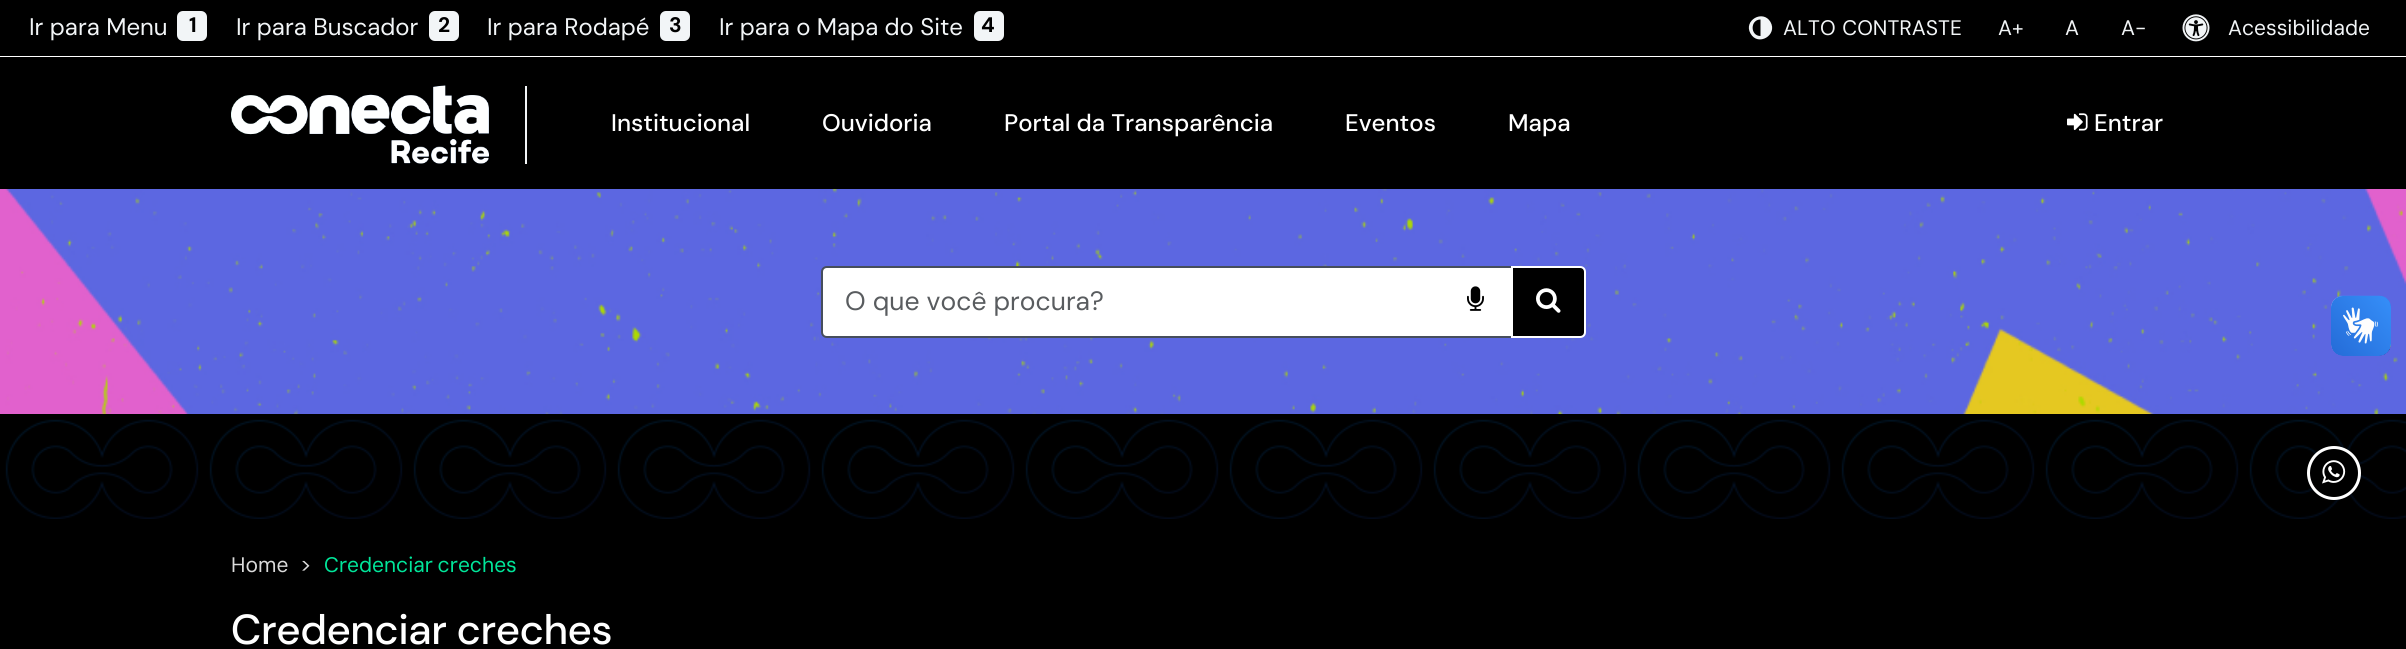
#include <cairo.h>
#include <math.h>
#include <stddef.h>


static void rgb(cairo_t *cr, int r, int g, int b)
{
	cairo_set_source_rgb(cr, r / 255.0, g / 255.0, b / 255.0);
}

static void face(cairo_t *cr, const char *family, double size, int italic, int bold)
{
	cairo_select_font_face(cr, family, italic ? CAIRO_FONT_SLANT_ITALIC : CAIRO_FONT_SLANT_NORMAL,
		bold ? CAIRO_FONT_WEIGHT_BOLD : CAIRO_FONT_WEIGHT_NORMAL);
	cairo_set_font_size(cr, size);
}

static void label(cairo_t *cr, double x, double y, const char *s)
{
	cairo_move_to(cr, x, y);
	cairo_show_text(cr, s);
}

static void tracked(cairo_t *cr, double x, double y, const char *s, double letter, double word)
{
	cairo_move_to(cr, x, y);
	while (*s) {
		char ch[5] = {0};
		int n = 0;
		do ch[n++] = *s++; while ((*s & 0xC0) == 0x80);
		cairo_show_text(cr, ch);
		cairo_rel_move_to(cr, letter + word * (*ch == ' '), 0);
	}
}

static void rect(cairo_t *cr, double x, double y, double w, double h)
{
	cairo_rectangle(cr, x, y, w, h);
	cairo_fill(cr);
}

static void rrect(cairo_t *cr, double x, double y, double w, double h, double r)
{
	cairo_new_sub_path(cr);
	cairo_arc(cr, x + w - r, y + h - r, r, 0, M_PI / 2);
	cairo_arc(cr, x + r, y + h - r, r, M_PI / 2, M_PI);
	cairo_arc(cr, x + r, y + r, r, M_PI, 1.5 * M_PI);
	cairo_arc(cr, x + w - r, y + r, r, 1.5 * M_PI, 2 * M_PI);
	cairo_close_path(cr);
}

static void image(cairo_t *cr, const char *path, double x, double y, double w, double h)
{
	cairo_surface_t *image = cairo_image_surface_create_from_png(path);
	cairo_save(cr);
	cairo_set_source_surface(cr, image, x, y);
	cairo_rectangle(cr, x, y, w, h);
	cairo_fill(cr);
	cairo_restore(cr);
	cairo_surface_destroy(image);
}

static void draw(cairo_t *cr) {
	rgb(cr, 0, 0, 0);
	cairo_paint(cr);
	rgb(cr, 255, 255, 255);
	rect(cr, 0, 56, 2406, 1);
	face(cr, "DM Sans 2", 24, 0, 0);
	rgb(cr, 242, 245, 247);
	label(cr, 29, 35, "Ir para Menu");
	rrect(cr, 177, 11, 30, 30, 6);
	cairo_fill(cr);
	face(cr, "DM Sans", 21, 0, 1);
	rgb(cr, 0, 0, 0);
	label(cr, 189, 32, "1");
	face(cr, "DM Sans 2", 24, 0, 0);
	rgb(cr, 242, 245, 247);
	label(cr, 236, 35, "Ir para Buscador");
	rrect(cr, 429, 11, 30, 30, 6);
	cairo_fill(cr);
	face(cr, "DM Sans", 21, 0, 1);
	rgb(cr, 0, 0, 0);
	label(cr, 438, 32, "2");
	face(cr, "DM Sans 2", 24, 0, 0);
	rgb(cr, 242, 245, 247);
	label(cr, 487, 35, "Ir para Rodapé");
	rrect(cr, 660, 11, 30, 30, 6);
	cairo_fill(cr);
	face(cr, "DM Sans", 21, 0, 1);
	rgb(cr, 0, 0, 0);
	label(cr, 669, 32, "3");
	face(cr, "DM Sans 2", 24, 0, 0);
	rgb(cr, 242, 245, 247);
	label(cr, 719, 35, "Ir para o Mapa do Site");
	rrect(cr, 974, 11, 30, 30, 6);
	cairo_fill(cr);
	face(cr, "DM Sans", 21, 0, 1);
	rgb(cr, 0, 0, 0);
	label(cr, 981, 32, "4");
	rgb(cr, 242, 245, 247);
	cairo_new_path(cr);
	cairo_move_to(cr, 1760.5, 36);
	cairo_line_to(cr, 1760.5, 19.5);
	cairo_curve_to(cr, 1750, 19.5, 1750, 36, 1760.5, 36);
	cairo_close_path(cr);
	cairo_move_to(cr, 1770.5, 22);
	cairo_curve_to(cr, 1778, 35, 1758, 47, 1750.5, 33.5);
	cairo_curve_to(cr, 1743, 20.5, 1763, 9, 1770.5, 22);
	cairo_close_path(cr);
	cairo_fill(cr);
	face(cr, "DM Sans", 21, 0, 0);
	tracked(cr, 1783, 35, "ALTO CONTRASTE", 0, 1);
	label(cr, 1998, 35, "A+");
	label(cr, 2065, 35, "A");
	label(cr, 2121, 35, "A-");
	image(cr, "image0.png", 2182, 14, 28, 28);
	label(cr, 2228, 35, "Acessibilidade");
	rect(cr, 525, 86, 2, 78);
	image(cr, "image1.png", 231, 85, 258, 79);
	face(cr, "DM Sans 2 Medium", 24, 0, 0);
	rgb(cr, 255, 255, 255);
	label(cr, 611, 131, "Institucional");
	label(cr, 822, 131, "Ouvidoria");
	label(cr, 1004, 131, "Portal da Transparência");
	label(cr, 1345, 131, "Eventos");
	label(cr, 1508, 131, "Mapa");
	image(cr, "image2.png", 2067, 113, 21, 18);
	label(cr, 2094, 131, "Entrar");
	image(cr, "image3.png", 0, 189, 2406, 225);
	cairo_new_path(cr);
	cairo_move_to(cr, 827, 267);
	cairo_line_to(cr, 1441, 267);
	cairo_line_to(cr, 1441, 337);
	cairo_line_to(cr, 827, 337);
	cairo_curve_to(cr, 824, 337, 822, 335, 822, 332);
	cairo_line_to(cr, 822, 272);
	cairo_curve_to(cr, 822, 269, 824, 267, 827, 267);
	cairo_close_path(cr);
	cairo_fill_preserve(cr);
	rgb(cr, 70, 78, 92);
	cairo_stroke(cr);
	face(cr, "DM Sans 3", 26.5, 0, 0);
	rgb(cr, 89, 92, 95);
	label(cr, 845, 310, "O que você procura?");
	rgb(cr, 255, 255, 255);
	rect(cr, 1440, 268, 71, 68);
	rgb(cr, 70, 78, 92);
	rect(cr, 1440, 266, 72, 2);
	rect(cr, 1440, 336, 72, 2);
	image(cr, "image4.png", 1467, 286, 17, 25);
	rgb(cr, 0, 0, 0);
	cairo_new_path(cr);
	cairo_move_to(cr, 1512, 267);
	cairo_line_to(cr, 1580, 267);
	cairo_curve_to(cr, 1583, 267, 1585, 269, 1585, 272);
	cairo_line_to(cr, 1585, 332);
	cairo_curve_to(cr, 1585, 335, 1583, 337, 1580, 337);
	cairo_line_to(cr, 1512, 337);
	cairo_close_path(cr);
	cairo_fill_preserve(cr);
	rgb(cr, 255, 255, 255);
	cairo_stroke(cr);
	image(cr, "image5.png", 1536, 288, 25, 25);
	image(cr, "image6.png", 5, 419, 2401, 100);
	image(cr, "image7.png", 2331, 295, 60, 61);
	image(cr, "image8.png", 2331, 296, 60, 60);
	rgb(cr, 0, 0, 0);
	cairo_arc(cr, 2334, 473, 25.5, 0, 2 * M_PI);
	cairo_fill_preserve(cr);
	rgb(cr, 255, 255, 255);
	cairo_set_line_width(cr, 3);
	cairo_stroke(cr);
	image(cr, "image9.png", 2322, 460, 24, 24);
	face(cr, "DM Sans", 21, 0, 0);
	rgb(cr, 219, 219, 219);
	label(cr, 231, 572, "Home");
	label(cr, 300, 572, ">");
	rgb(cr, 0, 230, 154);
	tracked(cr, 324, 572, "Credenciar creches", 0, -1);
	face(cr, "DM Sans Medium", 42, 0, 0);
	rgb(cr, 255, 255, 255);
	label(cr, 231, 644, "Credenciar creches");
}

int main(void) {
	cairo_surface_t *surface = cairo_image_surface_create(CAIRO_FORMAT_RGB24, 2406, 649);
	cairo_t *cr = cairo_create(surface);
	cairo_font_options_t *options = cairo_font_options_create();
	cairo_font_options_set_hint_metrics(options, CAIRO_HINT_METRICS_OFF);
	cairo_font_options_set_hint_style(options, CAIRO_HINT_STYLE_NONE);
	cairo_set_font_options(cr, options);
	cairo_set_miter_limit(cr, 4);
	draw(cr);
	cairo_surface_write_to_png(surface, "render.png");
	cairo_font_options_destroy(options);
	cairo_destroy(cr);
	cairo_surface_destroy(surface);
	return 0;
}
